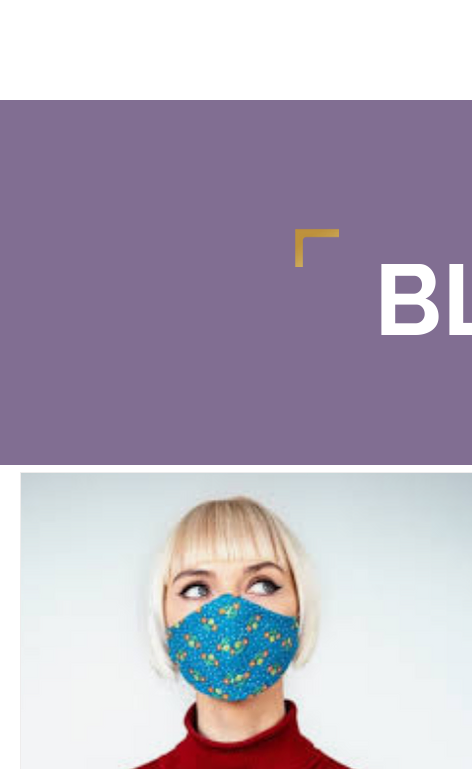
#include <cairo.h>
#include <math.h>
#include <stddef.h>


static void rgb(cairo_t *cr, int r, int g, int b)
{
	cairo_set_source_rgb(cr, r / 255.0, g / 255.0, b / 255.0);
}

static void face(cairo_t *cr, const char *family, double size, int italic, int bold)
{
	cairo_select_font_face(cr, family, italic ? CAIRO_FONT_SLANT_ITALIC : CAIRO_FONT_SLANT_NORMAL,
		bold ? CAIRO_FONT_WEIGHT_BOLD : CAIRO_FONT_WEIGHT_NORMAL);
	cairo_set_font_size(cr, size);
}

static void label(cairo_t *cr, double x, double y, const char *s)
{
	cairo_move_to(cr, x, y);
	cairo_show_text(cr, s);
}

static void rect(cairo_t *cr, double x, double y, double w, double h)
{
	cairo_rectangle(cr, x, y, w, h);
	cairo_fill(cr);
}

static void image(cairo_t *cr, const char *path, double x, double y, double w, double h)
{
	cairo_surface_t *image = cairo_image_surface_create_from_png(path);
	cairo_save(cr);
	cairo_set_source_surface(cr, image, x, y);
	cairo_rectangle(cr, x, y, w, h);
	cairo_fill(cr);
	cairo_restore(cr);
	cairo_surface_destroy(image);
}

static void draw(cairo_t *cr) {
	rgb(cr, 255, 255, 255);
	cairo_paint(cr);
	rgb(cr, 129, 110, 146);
	rect(cr, 0, 100, 472, 365);
	image(cr, "image0.png", 295, 228, 44, 39);
	face(cr, "Raleway", 100, 0, 1);
	rgb(cr, 255, 255, 255);
	label(cr, 374, 335, "BL");
	cairo_rectangle(cr, 20.5, 472.5, 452, 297);
	rgb(cr, 238, 236, 236);
	cairo_set_line_width(cr, 1);
	cairo_stroke(cr);
	image(cr, "image1.png", 21, 473, 451, 296);
}

int main(void) {
	cairo_surface_t *surface = cairo_image_surface_create(CAIRO_FORMAT_RGB24, 472, 769);
	cairo_t *cr = cairo_create(surface);
	cairo_font_options_t *options = cairo_font_options_create();
	cairo_font_options_set_hint_metrics(options, CAIRO_HINT_METRICS_OFF);
	cairo_font_options_set_hint_style(options, CAIRO_HINT_STYLE_NONE);
	cairo_set_font_options(cr, options);
	cairo_set_miter_limit(cr, 4);
	draw(cr);
	cairo_surface_write_to_png(surface, "render.png");
	cairo_font_options_destroy(options);
	cairo_destroy(cr);
	cairo_surface_destroy(surface);
	return 0;
}
